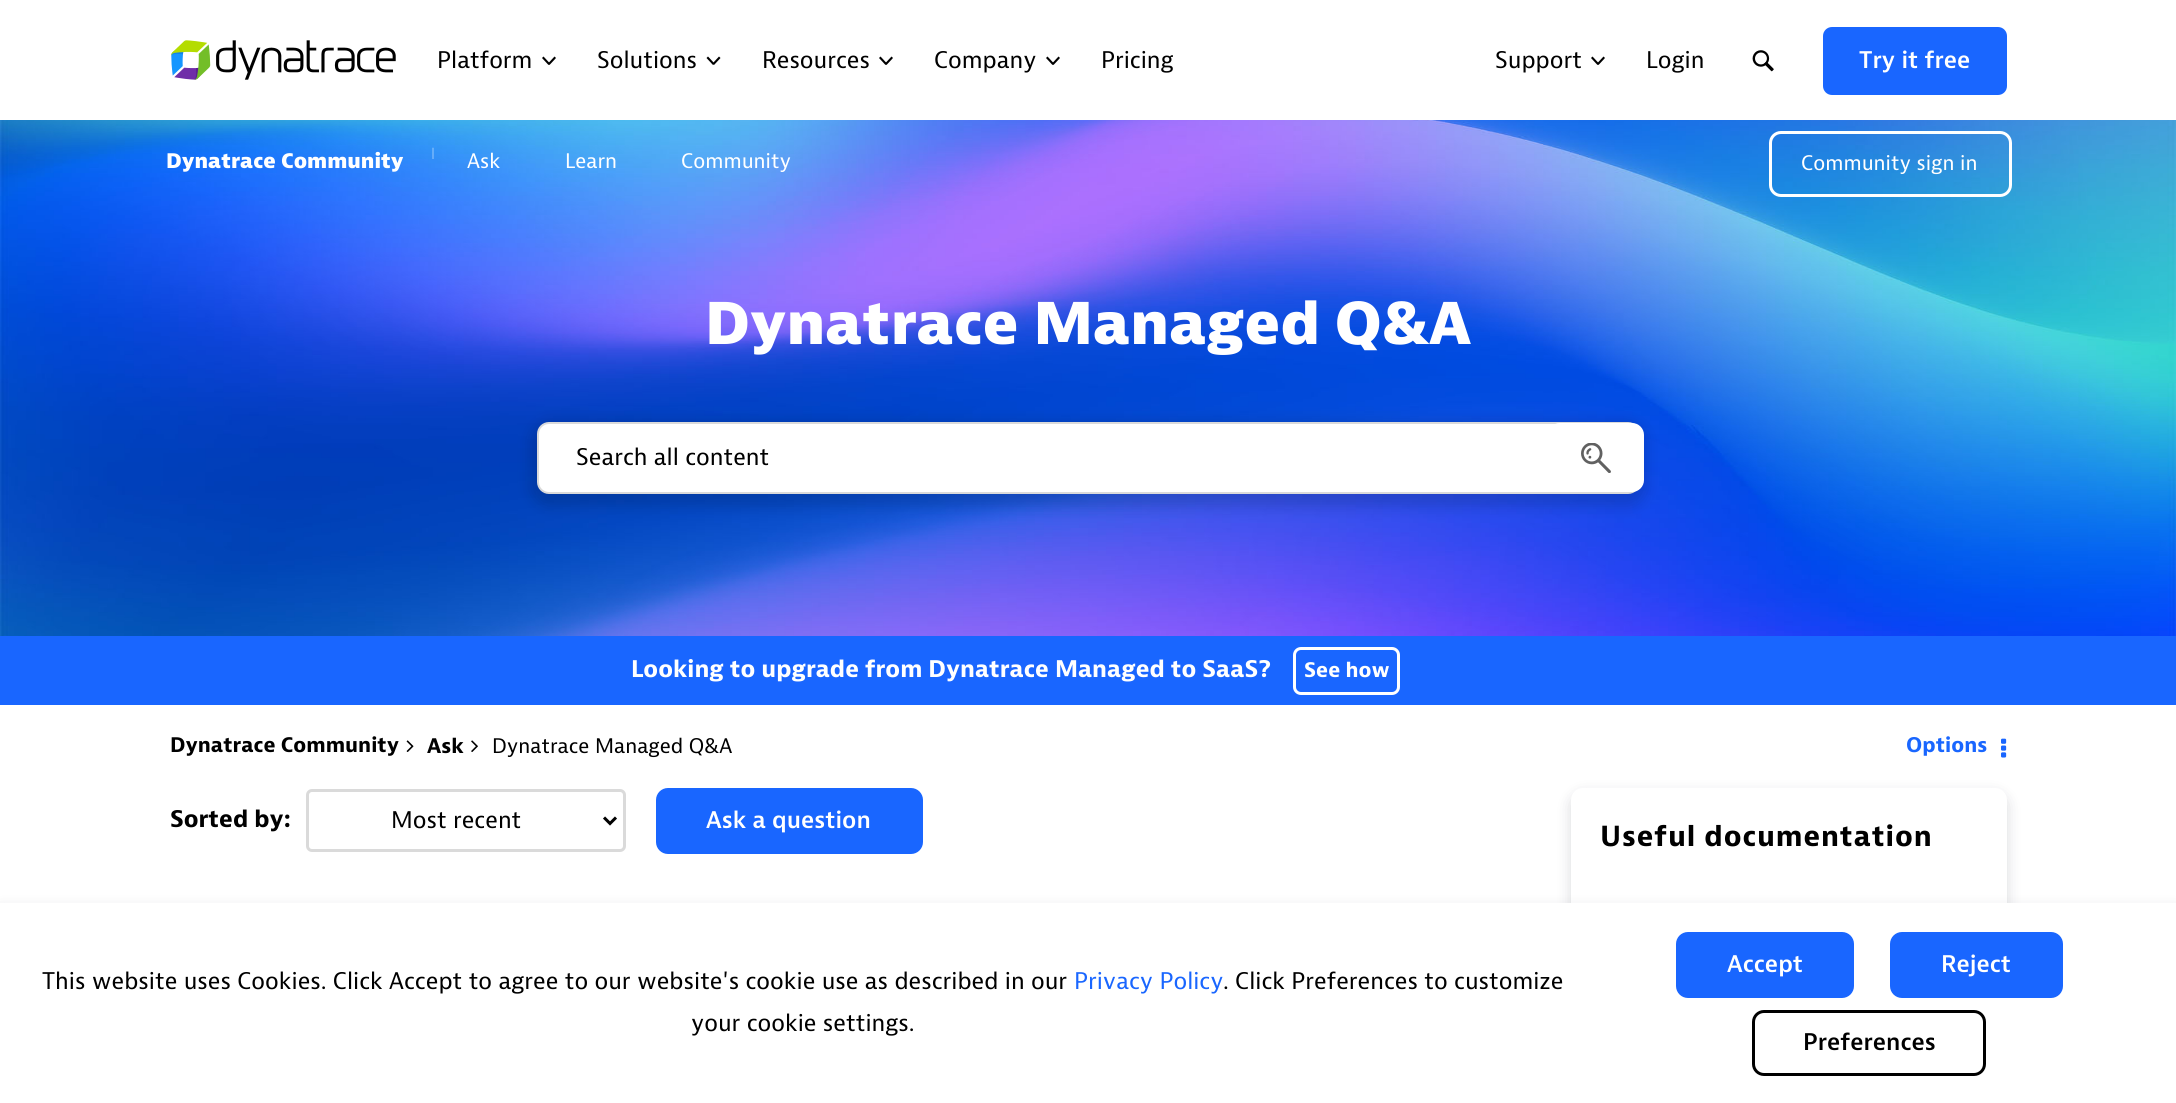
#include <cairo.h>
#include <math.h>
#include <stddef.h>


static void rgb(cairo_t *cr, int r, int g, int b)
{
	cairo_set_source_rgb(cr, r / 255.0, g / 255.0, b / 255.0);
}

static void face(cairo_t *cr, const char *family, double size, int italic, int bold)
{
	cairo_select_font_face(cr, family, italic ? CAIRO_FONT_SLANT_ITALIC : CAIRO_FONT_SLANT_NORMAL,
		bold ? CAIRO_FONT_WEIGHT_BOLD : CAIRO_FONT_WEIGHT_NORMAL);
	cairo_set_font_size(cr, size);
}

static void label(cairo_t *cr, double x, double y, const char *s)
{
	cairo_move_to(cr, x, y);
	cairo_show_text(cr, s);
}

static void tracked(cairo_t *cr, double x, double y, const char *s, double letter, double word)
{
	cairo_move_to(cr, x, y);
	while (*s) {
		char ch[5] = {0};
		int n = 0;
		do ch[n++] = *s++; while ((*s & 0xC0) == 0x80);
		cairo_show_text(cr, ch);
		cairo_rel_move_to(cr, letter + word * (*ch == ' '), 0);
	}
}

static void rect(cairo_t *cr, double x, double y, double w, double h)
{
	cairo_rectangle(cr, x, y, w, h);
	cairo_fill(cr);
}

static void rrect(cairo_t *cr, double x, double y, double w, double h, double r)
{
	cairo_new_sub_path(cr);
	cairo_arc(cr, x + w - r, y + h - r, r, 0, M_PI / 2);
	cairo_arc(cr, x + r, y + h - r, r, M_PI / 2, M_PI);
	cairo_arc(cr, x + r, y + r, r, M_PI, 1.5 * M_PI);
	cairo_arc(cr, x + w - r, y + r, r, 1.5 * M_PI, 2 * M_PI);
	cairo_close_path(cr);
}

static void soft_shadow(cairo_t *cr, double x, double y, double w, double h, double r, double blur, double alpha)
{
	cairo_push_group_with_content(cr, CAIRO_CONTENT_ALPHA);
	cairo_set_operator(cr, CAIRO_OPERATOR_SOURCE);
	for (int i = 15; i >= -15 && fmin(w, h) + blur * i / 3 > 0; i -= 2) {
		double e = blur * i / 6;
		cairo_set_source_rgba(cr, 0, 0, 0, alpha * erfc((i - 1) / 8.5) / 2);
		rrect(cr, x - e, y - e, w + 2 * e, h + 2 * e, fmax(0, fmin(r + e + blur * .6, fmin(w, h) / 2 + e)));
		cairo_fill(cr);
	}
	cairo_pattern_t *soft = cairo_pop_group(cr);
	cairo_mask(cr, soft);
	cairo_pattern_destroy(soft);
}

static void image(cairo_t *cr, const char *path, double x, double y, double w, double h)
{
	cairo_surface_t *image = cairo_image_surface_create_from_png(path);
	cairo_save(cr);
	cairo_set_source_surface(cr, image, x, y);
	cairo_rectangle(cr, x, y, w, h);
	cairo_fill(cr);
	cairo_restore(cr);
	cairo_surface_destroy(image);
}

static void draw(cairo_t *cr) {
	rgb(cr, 255, 255, 255);
	cairo_paint(cr);
	image(cr, "image0.png", 171, 40, 225, 40);
	face(cr, "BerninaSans", 24, 0, 0);
	rgb(cr, 0, 0, 0);
	label(cr, 437, 68, "Platform");
	cairo_new_path(cr);
	cairo_move_to(cr, 549.5, 65);
	cairo_line_to(cr, 548, 63.5);
	cairo_line_to(cr, 554.5, 56.5);
	cairo_line_to(cr, 556, 58);
	cairo_close_path(cr);
	cairo_fill(cr);
	cairo_new_path(cr);
	cairo_move_to(cr, 550, 63.5);
	cairo_line_to(cr, 548.5, 65);
	cairo_line_to(cr, 542, 58);
	cairo_line_to(cr, 543.5, 56.5);
	cairo_close_path(cr);
	cairo_fill(cr);
	label(cr, 597, 68, "Solutions");
	cairo_new_path(cr);
	cairo_move_to(cr, 714, 65);
	cairo_line_to(cr, 712.5, 63.5);
	cairo_line_to(cr, 719, 56.5);
	cairo_line_to(cr, 720.5, 58);
	cairo_close_path(cr);
	cairo_fill(cr);
	cairo_new_path(cr);
	cairo_move_to(cr, 714.5, 63.5);
	cairo_line_to(cr, 713, 65);
	cairo_line_to(cr, 706.5, 58);
	cairo_line_to(cr, 708, 56.5);
	cairo_close_path(cr);
	cairo_fill(cr);
	label(cr, 762, 68, "Resources");
	cairo_new_path(cr);
	cairo_move_to(cr, 886.5, 65);
	cairo_line_to(cr, 885, 63.5);
	cairo_line_to(cr, 891.5, 56.5);
	cairo_line_to(cr, 893, 58);
	cairo_close_path(cr);
	cairo_fill(cr);
	cairo_new_path(cr);
	cairo_move_to(cr, 887, 63.5);
	cairo_line_to(cr, 885.5, 65);
	cairo_line_to(cr, 879, 58);
	cairo_line_to(cr, 880.5, 56.5);
	cairo_close_path(cr);
	cairo_fill(cr);
	label(cr, 934, 68, "Company");
	cairo_new_path(cr);
	cairo_move_to(cr, 1053.5, 65);
	cairo_line_to(cr, 1052, 63.5);
	cairo_line_to(cr, 1058.5, 56.5);
	cairo_line_to(cr, 1060, 58);
	cairo_close_path(cr);
	cairo_fill(cr);
	cairo_new_path(cr);
	cairo_move_to(cr, 1054, 63.5);
	cairo_line_to(cr, 1052.5, 65);
	cairo_line_to(cr, 1046, 58);
	cairo_line_to(cr, 1047.5, 56.5);
	cairo_close_path(cr);
	cairo_fill(cr);
	label(cr, 1101, 68, "Pricing");
	label(cr, 1495, 68, "Support");
	cairo_new_path(cr);
	cairo_move_to(cr, 1598.5, 65);
	cairo_line_to(cr, 1597, 63.5);
	cairo_line_to(cr, 1603.5, 56.5);
	cairo_line_to(cr, 1605, 58);
	cairo_close_path(cr);
	cairo_fill(cr);
	cairo_new_path(cr);
	cairo_move_to(cr, 1599, 63.5);
	cairo_line_to(cr, 1597.5, 65);
	cairo_line_to(cr, 1591, 58);
	cairo_line_to(cr, 1592.5, 56.5);
	cairo_close_path(cr);
	cairo_fill(cr);
	label(cr, 1646, 68, "Login");
	image(cr, "image1.png", 1752, 50, 22, 22);
	rgb(cr, 25, 102, 255);
	rrect(cr, 1823, 27, 184, 68, 9);
	cairo_fill(cr);
	face(cr, "BerninaSans SemiBold", 24, 0, 0);
	rgb(cr, 255, 255, 255);
	label(cr, 1859, 68, "Try it free");
	image(cr, "image3.png", 0, 120, 2176, 516);
	face(cr, "BerninaSans ExtraBold", 21, 0, 0);
	label(cr, 166, 168, "Dynatrace Community");
	image(cr, "image2.png", 432, 147, 2, 12);
	face(cr, "BerninaSans", 21, 0, 0);
	label(cr, 467, 168, "Ask");
	label(cr, 565, 168, "Learn");
	label(cr, 681, 168, "Community");
	rrect(cr, 1770.5, 132.5, 240, 63, 10.5);
	cairo_set_line_width(cr, 3);
	cairo_stroke(cr);
	face(cr, "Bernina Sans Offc", 21, 0, 0);
	label(cr, 1801, 170, "Community sign in");
	face(cr, "BerninaSans ExtraBold", 60, 0, 0);
	label(cr, 705, 344, "Dynatrace Managed Q&A");
	rgb(cr, 0, 0, 0);
	soft_shadow(cr, 531, 422, 1115, 84, 18, 7.5, 0.15);
	rgb(cr, 255, 255, 255);
	rrect(cr, 538, 423, 1101, 70, 11);
	cairo_fill_preserve(cr);
	rgb(cr, 218, 218, 218);
	cairo_set_line_width(cr, 2);
	cairo_stroke(cr);
	face(cr, "Bernina Sans Offc", 24, 0, 0);
	rgb(cr, 0, 0, 0);
	label(cr, 576, 465, "Search all content");
	rgb(cr, 255, 255, 255);
	rrect(cr, 1548, 423, 96, 69, 12);
	cairo_fill(cr);
	image(cr, "image4.png", 1581, 443, 30, 30);
	rgb(cr, 25, 102, 255);
	rect(cr, 0, 636, 2176, 69);
	face(cr, "Bernina Sans Offc", 24, 0, 1);
	rgb(cr, 255, 255, 255);
	label(cr, 631, 677, "Looking to upgrade from Dynatrace Managed to SaaS?");
	rrect(cr, 1294.5, 648.5, 104, 45, 6.5);
	cairo_set_line_width(cr, 3);
	cairo_stroke(cr);
	face(cr, "Bernina Sans Offc", 21, 0, 1);
	label(cr, 1304, 677, "See how");
	rgb(cr, 0, 0, 0);
	label(cr, 170, 752, "Dynatrace Community");
	image(cr, "image5.png", 406, 740, 8, 12);
	label(cr, 427, 753, "Ask");
	image(cr, "image6.png", 471, 740, 7, 12);
	face(cr, "Bernina Sans Offc", 21, 0, 0);
	label(cr, 492, 753, "Dynatrace Managed Q&A");
	face(cr, "Bernina Sans Offc", 21, 0, 1);
	rgb(cr, 25, 102, 255);
	label(cr, 1906, 752, "Options");
	image(cr, "image7.png", 2001, 738, 6, 20);
	face(cr, "Bernina Sans Offc", 24, 0, 1);
	rgb(cr, 0, 0, 0);
	label(cr, 170, 827, "Sorted by:");
	rrect(cr, 307.5, 790.5, 317, 60, 4.5);
	rgb(cr, 218, 218, 218);
	cairo_stroke(cr);
	cairo_new_path(cr);
	cairo_move_to(cr, 604, 817.5);
	cairo_line_to(cr, 610, 823.5);
	cairo_line_to(cr, 616, 817.5);
	rgb(cr, 0, 0, 0);
	cairo_stroke(cr);
	face(cr, "Bernina Sans Offc", 24, 0, 0);
	label(cr, 391, 828, "Most recent");
	rgb(cr, 25, 102, 255);
	rrect(cr, 657.5, 789.5, 264, 63, 10.5);
	cairo_fill_preserve(cr);
	cairo_stroke(cr);
	face(cr, "Bernina Sans Offc SemiBold", 24, 0, 0);
	rgb(cr, 255, 255, 255);
	label(cr, 706, 828, "Ask a question");
	rgb(cr, 2, 9, 27);
	soft_shadow(cr, 1571, 794, 436, 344, 12, 7.5, 0.15);
	rgb(cr, 255, 255, 255);
	rrect(cr, 1571, 788, 436, 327, 12);
	cairo_fill(cr);
	face(cr, "Bernina Sans", 27, 0, 1);
	rgb(cr, 0, 0, 0);
	tracked(cr, 1600, 846, "Useful documentation", 0.9, 0);
	rgb(cr, 2, 9, 27);
	soft_shadow(cr, 0, 909, 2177, 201, 0, 7.5, 0.15);
	rgb(cr, 255, 255, 255);
	rect(cr, 0, 903, 2176, 200);
	face(cr, "Bernina Sans Offc", 24, 0, 0);
	rgb(cr, 0, 0, 0);
	label(cr, 42, 989, "This website uses Cookies. Click Accept to agree to our website's cookie use as described in our");
	rgb(cr, 25, 102, 255);
	label(cr, 1074, 989, "Privacy Policy");
	rgb(cr, 0, 0, 0);
	label(cr, 1223, 989, ". Click Preferences to customize");
	label(cr, 691, 1031, "your cookie settings.");
	rgb(cr, 25, 102, 255);
	rrect(cr, 1677.5, 933.5, 175, 63, 10.5);
	cairo_fill_preserve(cr);
	cairo_stroke(cr);
	face(cr, "Bernina Sans Offc SemiBold", 24, 0, 0);
	rgb(cr, 255, 255, 255);
	label(cr, 1727, 972, "Accept");
	rgb(cr, 25, 102, 255);
	rrect(cr, 1891.5, 933.5, 170, 63, 10.5);
	cairo_fill_preserve(cr);
	cairo_stroke(cr);
	rgb(cr, 255, 255, 255);
	label(cr, 1941, 972, "Reject");
	rrect(cr, 1753.5, 1011.5, 231, 63, 10.5);
	rgb(cr, 0, 0, 0);
	cairo_stroke(cr);
	label(cr, 1803, 1050, "Preferences");
}

int main(void) {
	cairo_surface_t *surface = cairo_image_surface_create(CAIRO_FORMAT_RGB24, 2176, 1103);
	cairo_t *cr = cairo_create(surface);
	cairo_font_options_t *options = cairo_font_options_create();
	cairo_font_options_set_hint_metrics(options, CAIRO_HINT_METRICS_OFF);
	cairo_font_options_set_hint_style(options, CAIRO_HINT_STYLE_NONE);
	cairo_set_font_options(cr, options);
	cairo_set_miter_limit(cr, 4);
	draw(cr);
	cairo_surface_write_to_png(surface, "render.png");
	cairo_font_options_destroy(options);
	cairo_destroy(cr);
	cairo_surface_destroy(surface);
	return 0;
}
